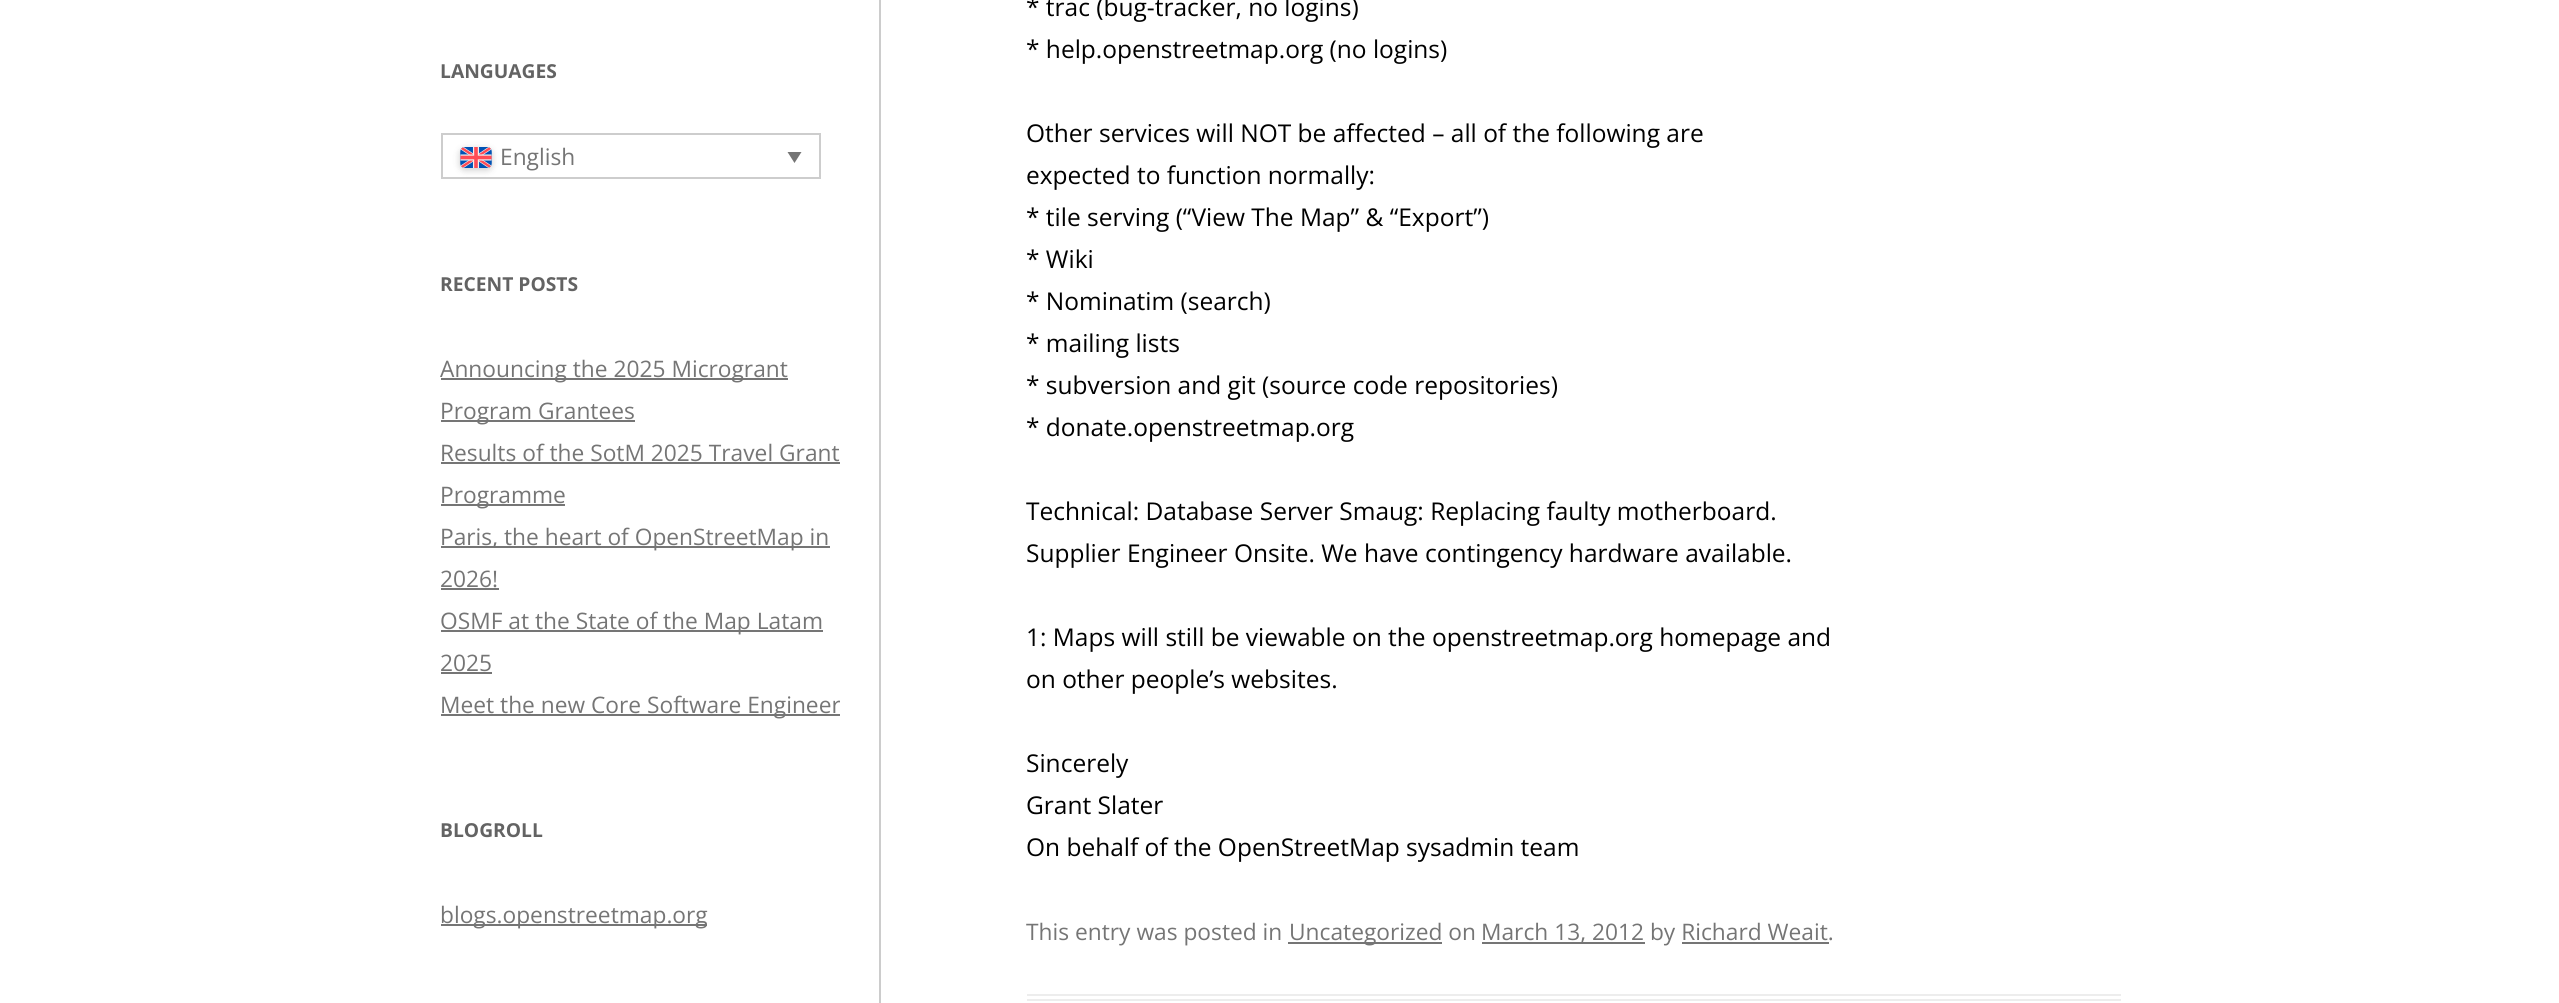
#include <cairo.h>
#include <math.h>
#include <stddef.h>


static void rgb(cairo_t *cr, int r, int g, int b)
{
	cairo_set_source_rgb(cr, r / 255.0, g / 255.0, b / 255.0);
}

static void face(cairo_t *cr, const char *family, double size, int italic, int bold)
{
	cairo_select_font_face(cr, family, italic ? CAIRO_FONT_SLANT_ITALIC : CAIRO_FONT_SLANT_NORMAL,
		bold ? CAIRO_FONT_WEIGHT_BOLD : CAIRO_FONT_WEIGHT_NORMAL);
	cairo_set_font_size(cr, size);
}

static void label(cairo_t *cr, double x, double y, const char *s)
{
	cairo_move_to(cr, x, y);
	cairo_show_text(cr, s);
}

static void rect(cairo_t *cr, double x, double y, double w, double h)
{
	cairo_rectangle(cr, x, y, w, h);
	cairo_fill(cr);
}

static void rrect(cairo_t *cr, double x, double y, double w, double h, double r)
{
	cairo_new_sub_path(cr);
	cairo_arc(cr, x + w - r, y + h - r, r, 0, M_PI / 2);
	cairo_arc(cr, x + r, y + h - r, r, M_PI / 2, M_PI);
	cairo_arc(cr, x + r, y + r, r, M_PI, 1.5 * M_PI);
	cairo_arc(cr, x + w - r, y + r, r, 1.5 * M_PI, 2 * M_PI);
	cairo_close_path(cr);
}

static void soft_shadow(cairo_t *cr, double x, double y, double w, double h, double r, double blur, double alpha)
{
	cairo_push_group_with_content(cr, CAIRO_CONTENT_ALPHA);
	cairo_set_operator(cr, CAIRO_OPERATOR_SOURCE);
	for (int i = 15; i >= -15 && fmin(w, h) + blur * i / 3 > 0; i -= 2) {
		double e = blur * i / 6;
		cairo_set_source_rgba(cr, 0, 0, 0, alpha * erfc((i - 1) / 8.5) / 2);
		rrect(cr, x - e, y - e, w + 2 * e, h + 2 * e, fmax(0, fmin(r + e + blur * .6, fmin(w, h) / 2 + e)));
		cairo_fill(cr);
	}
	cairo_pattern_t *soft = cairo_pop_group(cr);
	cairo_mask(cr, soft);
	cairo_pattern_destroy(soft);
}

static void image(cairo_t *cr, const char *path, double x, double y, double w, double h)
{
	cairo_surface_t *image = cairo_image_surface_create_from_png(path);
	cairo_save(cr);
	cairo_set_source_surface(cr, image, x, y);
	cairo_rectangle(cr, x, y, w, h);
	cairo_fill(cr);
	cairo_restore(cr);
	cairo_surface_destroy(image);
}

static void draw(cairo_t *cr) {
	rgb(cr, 255, 255, 255);
	cairo_paint(cr);
	rgb(cr, 204, 204, 204);
	rect(cr, 879, 0, 2, 1003);
	face(cr, "Open Sans", 19.25, 0, 1);
	rgb(cr, 99, 99, 99);
	label(cr, 440, 78, "LANGUAGES");
	cairo_rectangle(cr, 442, 134, 378, 44);
	rgb(cr, 205, 205, 205);
	cairo_stroke(cr);
	rgb(cr, 0, 0, 0);
	soft_shadow(cr, 460, 149, 32, 21, 5, 3.5, 0.2);
	image(cr, "image0.png", 460, 147, 32, 21);
	face(cr, "Open Sans", 22.75, 0, 0);
	rgb(cr, 117, 117, 117);
	label(cr, 500, 165, "English");
	cairo_new_path(cr);
	cairo_move_to(cr, 787.5, 152);
	cairo_line_to(cr, 801.5, 152);
	cairo_line_to(cr, 794.5, 163);
	cairo_close_path(cr);
	cairo_fill(cr);
	face(cr, "Open Sans", 19.25, 0, 1);
	rgb(cr, 99, 99, 99);
	label(cr, 440, 291, "RECENT POSTS");
	rgb(cr, 117, 117, 117);
	rect(cr, 441, 378, 347, 2);
	face(cr, "Open Sans", 22.75, 0, 0);
	label(cr, 440, 377, "Announcing the 2025 Microgrant");
	rect(cr, 441, 420, 194, 2);
	label(cr, 440, 419, "Program Grantees");
	label(cr, 440, 461, "Results of the SotM 2025 Travel Grant");
	rect(cr, 441, 462, 399, 2);
	rect(cr, 441, 504, 124, 2);
	label(cr, 440, 503, "Programme");
	rect(cr, 441, 546, 389, 2);
	label(cr, 440, 545, "Paris, the heart of OpenStreetMap in");
	label(cr, 440, 587, "2026!");
	rect(cr, 441, 588, 58, 2);
	rect(cr, 441, 630, 382, 2);
	label(cr, 440, 629, "OSMF at the State of the Map Latam");
	label(cr, 440, 671, "2025");
	rect(cr, 441, 672, 51, 2);
	rect(cr, 441, 714, 399, 2);
	label(cr, 440, 713, "Meet the new Core Software Engineer");
	face(cr, "Open Sans", 19.25, 0, 1);
	rgb(cr, 99, 99, 99);
	label(cr, 440, 837, "BLOGROLL");
	rgb(cr, 117, 117, 117);
	rect(cr, 441, 924, 266, 2);
	face(cr, "Open Sans", 22.75, 0, 0);
	label(cr, 440, 923, "blogs.openstreetmap.org");
	rgb(cr, 237, 237, 237);
	rect(cr, 1027, 994, 1094, 2);
	rect(cr, 1027, 999, 1094, 2);
	face(cr, "Open Sans", 24.5, 0, 0);
	rgb(cr, 0, 0, 0);
	label(cr, 1026, 16, "* trac (bug-tracker, no logins)");
	label(cr, 1026, 58, "* help.openstreetmap.org (no logins)");
	label(cr, 1026, 142, "Other services will NOT be affected – all of the following are");
	label(cr, 1026, 184, "expected to function normally:");
	label(cr, 1026, 226, "* tile serving (“View The Map” & “Export”)");
	label(cr, 1026, 268, "* Wiki");
	label(cr, 1026, 310, "* Nominatim (search)");
	label(cr, 1026, 352, "* mailing lists");
	label(cr, 1026, 394, "* subversion and git (source code repositories)");
	label(cr, 1026, 436, "* donate.openstreetmap.org");
	label(cr, 1026, 520, "Technical: Database Server Smaug: Replacing faulty motherboard.");
	label(cr, 1026, 562, "Supplier Engineer Onsite. We have contingency hardware available.");
	label(cr, 1026, 646, "1: Maps will still be viewable on the openstreetmap.org homepage and");
	label(cr, 1026, 688, "on other people’s websites.");
	label(cr, 1026, 772, "Sincerely");
	label(cr, 1026, 814, "Grant Slater");
	label(cr, 1026, 856, "On behalf of the OpenStreetMap sysadmin team");
	face(cr, "Open Sans", 22.75, 0, 0);
	rgb(cr, 117, 117, 117);
	label(cr, 1026, 940, "This entry was posted in");
	rect(cr, 1288, 942, 154, 2);
	label(cr, 1289, 940, "Uncategorized on");
	rect(cr, 1482, 942, 163, 2);
	label(cr, 1481, 940, "March 13, 2012 by Richard Weait.");
	rect(cr, 1682, 942, 147, 2);
}

int main(void) {
	cairo_surface_t *surface = cairo_image_surface_create(CAIRO_FORMAT_RGB24, 2559, 1003);
	cairo_t *cr = cairo_create(surface);
	cairo_font_options_t *options = cairo_font_options_create();
	cairo_font_options_set_hint_metrics(options, CAIRO_HINT_METRICS_OFF);
	cairo_font_options_set_hint_style(options, CAIRO_HINT_STYLE_NONE);
	cairo_set_font_options(cr, options);
	cairo_set_miter_limit(cr, 4);
	draw(cr);
	cairo_surface_write_to_png(surface, "render.png");
	cairo_font_options_destroy(options);
	cairo_destroy(cr);
	cairo_surface_destroy(surface);
	return 0;
}
